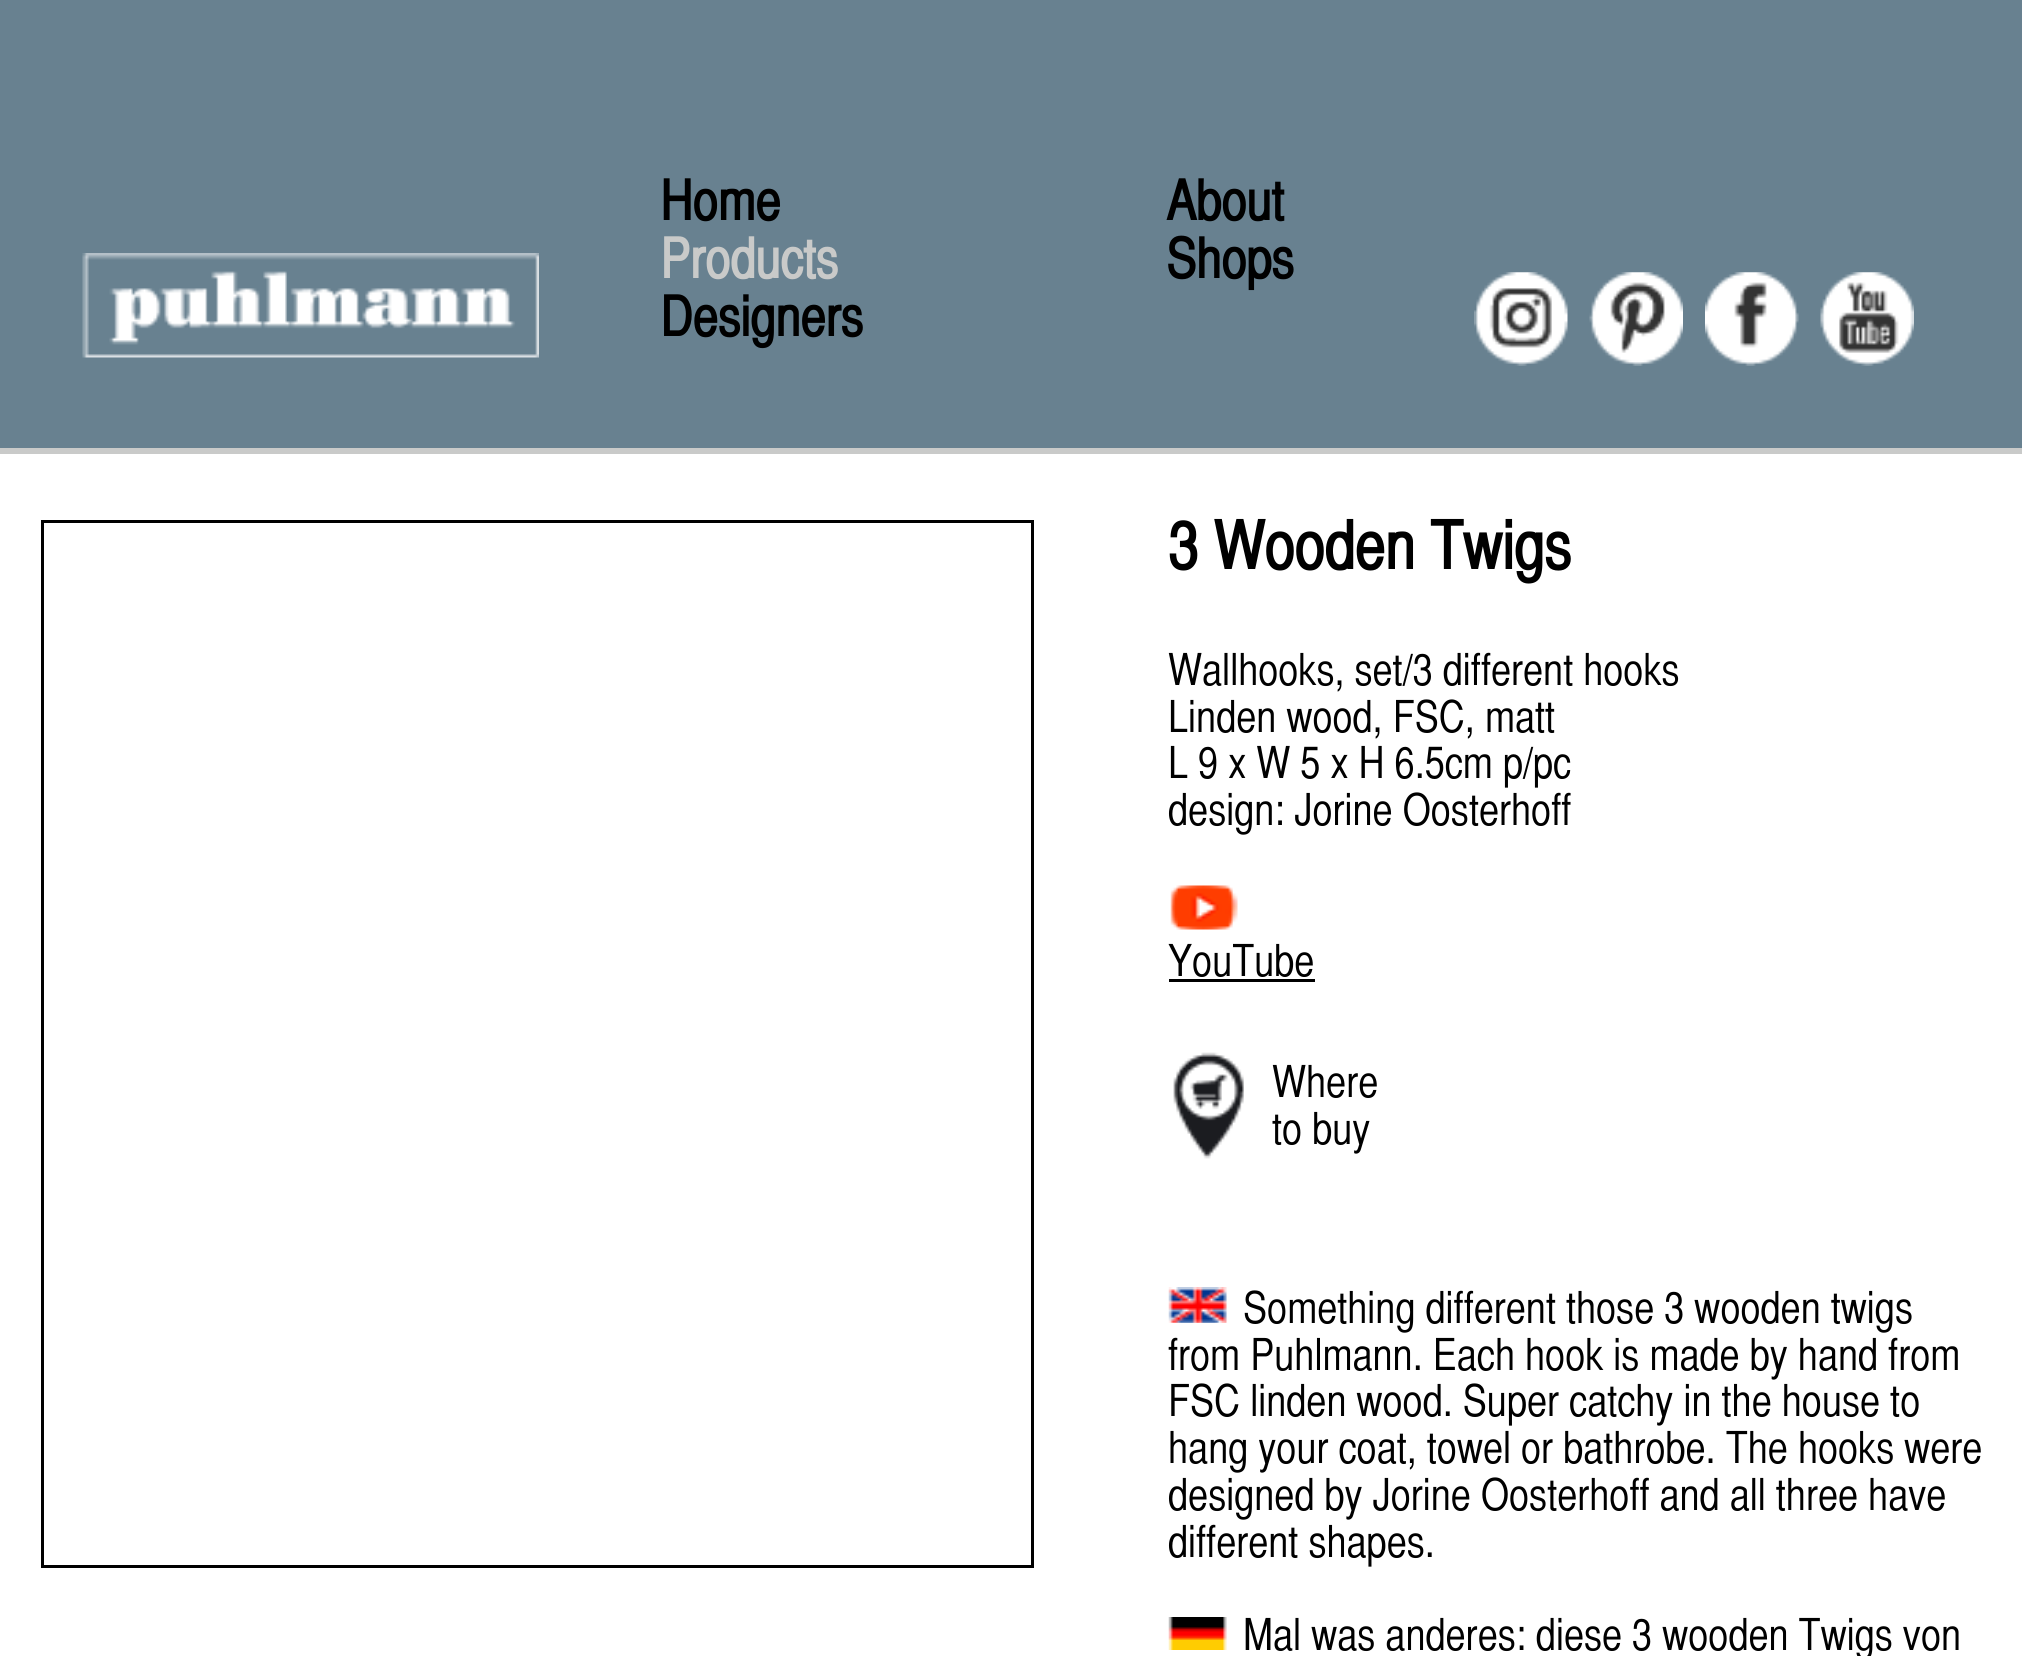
#include <cairo.h>
#include <math.h>
#include <stddef.h>


static void rgb(cairo_t *cr, int r, int g, int b)
{
	cairo_set_source_rgb(cr, r / 255.0, g / 255.0, b / 255.0);
}

static void face(cairo_t *cr, const char *family, double size, int italic, int bold)
{
	cairo_select_font_face(cr, family, italic ? CAIRO_FONT_SLANT_ITALIC : CAIRO_FONT_SLANT_NORMAL,
		bold ? CAIRO_FONT_WEIGHT_BOLD : CAIRO_FONT_WEIGHT_NORMAL);
	cairo_set_font_size(cr, size);
}

static void label(cairo_t *cr, double x, double y, const char *s)
{
	cairo_move_to(cr, x, y);
	cairo_show_text(cr, s);
}

static void rect(cairo_t *cr, double x, double y, double w, double h)
{
	cairo_rectangle(cr, x, y, w, h);
	cairo_fill(cr);
}

static void image(cairo_t *cr, const char *path, double x, double y, double w, double h)
{
	cairo_surface_t *image = cairo_image_surface_create_from_png(path);
	cairo_save(cr);
	cairo_set_source_surface(cr, image, x, y);
	cairo_rectangle(cr, x, y, w, h);
	cairo_fill(cr);
	cairo_restore(cr);
	cairo_surface_destroy(image);
}

static void draw(cairo_t *cr) {
	rgb(cr, 255, 255, 255);
	cairo_paint(cr);
	rgb(cr, 104, 129, 144);
	rect(cr, 0, 0, 2022, 448);
	rgb(cr, 201, 202, 201);
	rect(cr, 0, 448, 2022, 6);
	image(cr, "image0.png", 82, 253, 457, 105);
	face(cr, "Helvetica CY", 55, 0, 1);
	rgb(cr, 0, 0, 0);
	label(cr, 660, 220, "Home");
	label(cr, 1166, 220, "About");
	rgb(cr, 201, 202, 201);
	label(cr, 660, 278, "Products");
	rgb(cr, 0, 0, 0);
	label(cr, 1166, 278, "Shops");
	label(cr, 660, 336, "Designers");
	image(cr, "image1.png", 1474, 272, 94, 94);
	image(cr, "image2.png", 1589, 272, 94, 94);
	image(cr, "image3.png", 1705, 272, 94, 94);
	image(cr, "image4.png", 1820, 272, 94, 94);
	cairo_rectangle(cr, 42.5, 521.5, 990, 1045);
	cairo_set_line_width(cr, 3);
	cairo_stroke(cr);
	face(cr, "Helvetica CY", 66, 0, 1);
	label(cr, 1168, 569, "3 Wooden Twigs");
	face(cr, "Helvetica CY", 44, 0, 0);
	label(cr, 1168, 685, "Wallhooks, set/3 different hooks");
	label(cr, 1168, 732, "Linden wood, FSC, matt");
	label(cr, 1168, 778, "L 9 x W 5 x H 6.5cm p/pc");
	label(cr, 1168, 825, "design: Jorine Oosterhoff");
	image(cr, "image5.png", 1170, 885, 68, 45);
	label(cr, 1168, 976, "YouTube");
	rect(cr, 1169, 979, 146, 3);
	image(cr, "image6.png", 1173, 1052, 71, 107);
	label(cr, 1272, 1097, "Where");
	label(cr, 1272, 1144, "to buy");
	image(cr, "image7.png", 1168, 1287, 59, 36);
	label(cr, 1243, 1323, "Something different those 3 wooden twigs");
	label(cr, 1168, 1370, "from Puhlmann. Each hook is made by hand from");
	label(cr, 1168, 1416, "FSC linden wood. Super catchy in the house to");
	label(cr, 1168, 1463, "hang your coat, towel or bathrobe. The hooks were");
	label(cr, 1168, 1510, "designed by Jorine Oosterhoff and all three have");
	label(cr, 1168, 1557, "different shapes.");
	image(cr, "image8.png", 1168, 1617, 59, 33);
	label(cr, 1243, 1650, "Mal was anderes: diese 3 wooden Twigs von");
}

int main(void) {
	cairo_surface_t *surface = cairo_image_surface_create(CAIRO_FORMAT_RGB24, 2022, 1656);
	cairo_t *cr = cairo_create(surface);
	cairo_font_options_t *options = cairo_font_options_create();
	cairo_font_options_set_hint_metrics(options, CAIRO_HINT_METRICS_OFF);
	cairo_font_options_set_hint_style(options, CAIRO_HINT_STYLE_NONE);
	cairo_set_font_options(cr, options);
	cairo_set_miter_limit(cr, 4);
	draw(cr);
	cairo_surface_write_to_png(surface, "render.png");
	cairo_font_options_destroy(options);
	cairo_destroy(cr);
	cairo_surface_destroy(surface);
	return 0;
}
